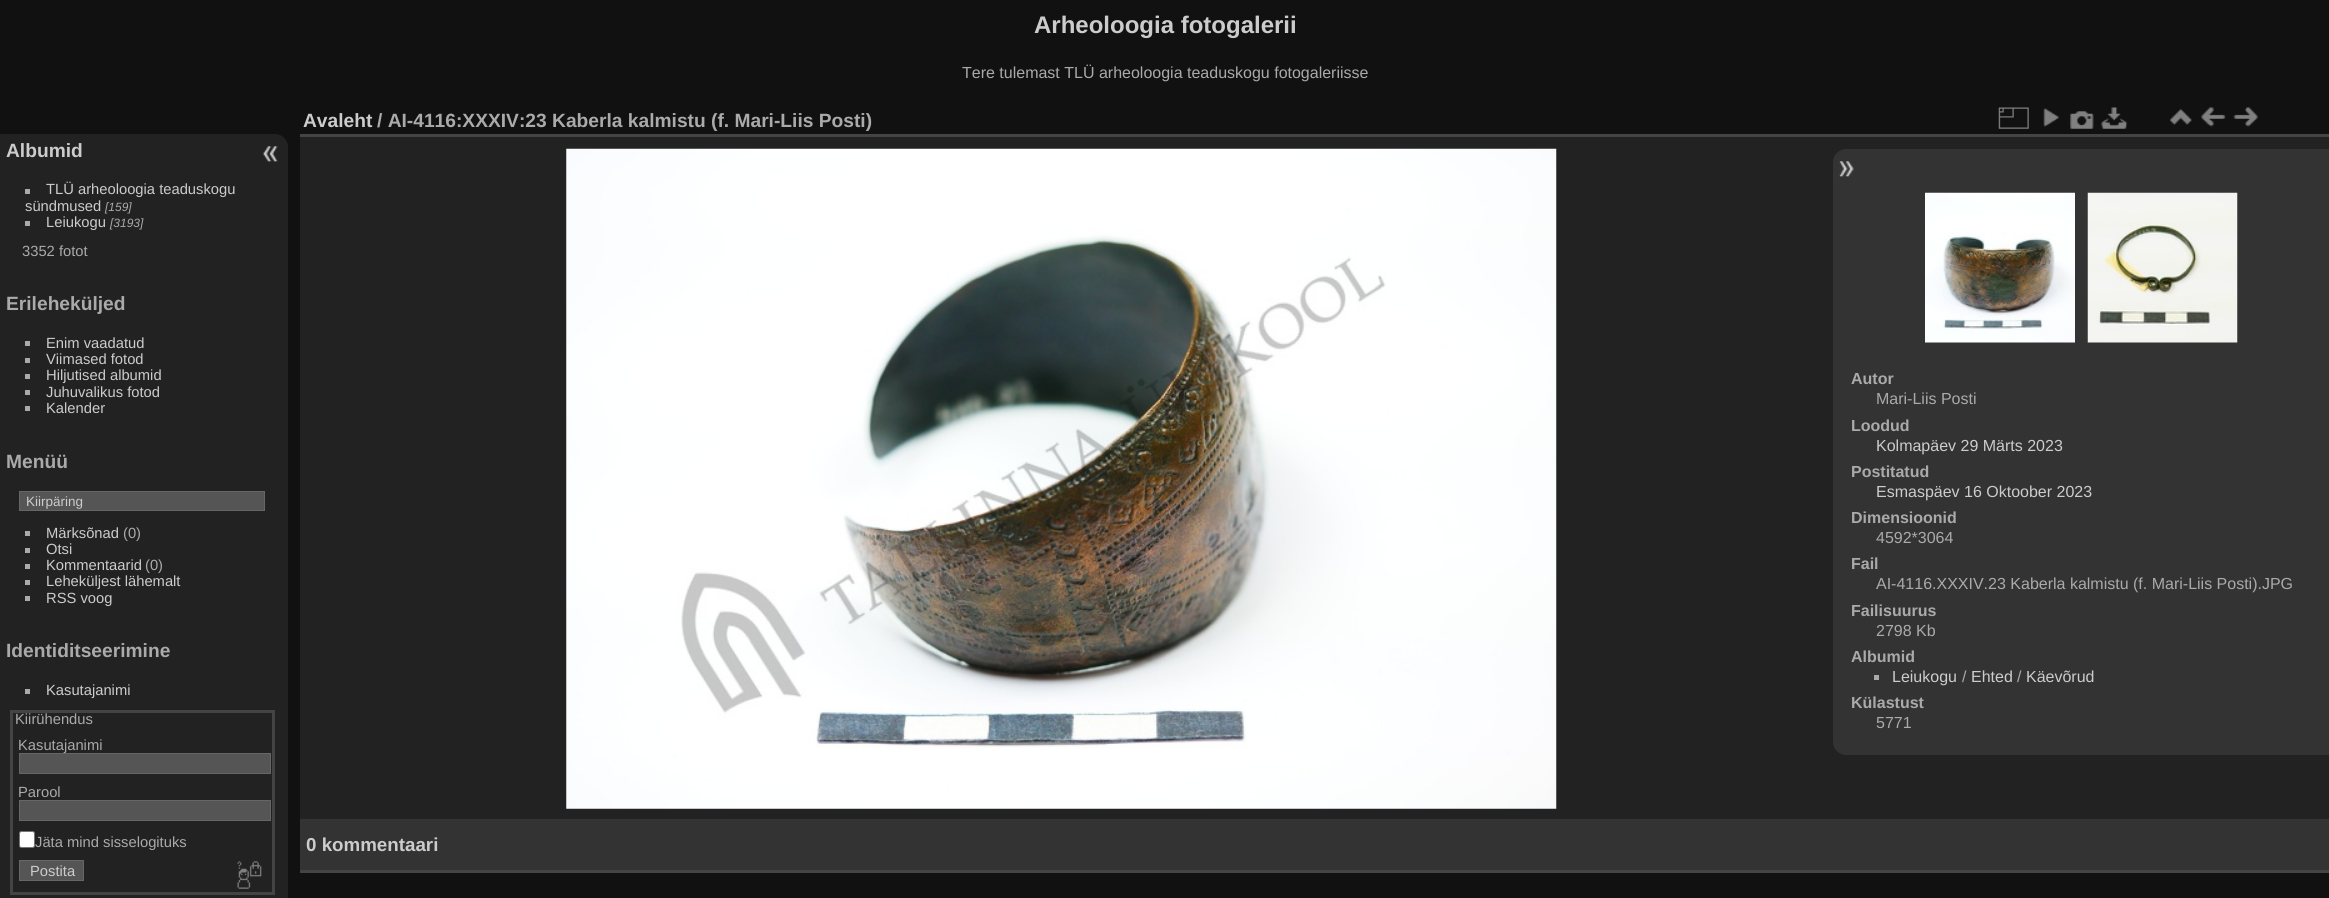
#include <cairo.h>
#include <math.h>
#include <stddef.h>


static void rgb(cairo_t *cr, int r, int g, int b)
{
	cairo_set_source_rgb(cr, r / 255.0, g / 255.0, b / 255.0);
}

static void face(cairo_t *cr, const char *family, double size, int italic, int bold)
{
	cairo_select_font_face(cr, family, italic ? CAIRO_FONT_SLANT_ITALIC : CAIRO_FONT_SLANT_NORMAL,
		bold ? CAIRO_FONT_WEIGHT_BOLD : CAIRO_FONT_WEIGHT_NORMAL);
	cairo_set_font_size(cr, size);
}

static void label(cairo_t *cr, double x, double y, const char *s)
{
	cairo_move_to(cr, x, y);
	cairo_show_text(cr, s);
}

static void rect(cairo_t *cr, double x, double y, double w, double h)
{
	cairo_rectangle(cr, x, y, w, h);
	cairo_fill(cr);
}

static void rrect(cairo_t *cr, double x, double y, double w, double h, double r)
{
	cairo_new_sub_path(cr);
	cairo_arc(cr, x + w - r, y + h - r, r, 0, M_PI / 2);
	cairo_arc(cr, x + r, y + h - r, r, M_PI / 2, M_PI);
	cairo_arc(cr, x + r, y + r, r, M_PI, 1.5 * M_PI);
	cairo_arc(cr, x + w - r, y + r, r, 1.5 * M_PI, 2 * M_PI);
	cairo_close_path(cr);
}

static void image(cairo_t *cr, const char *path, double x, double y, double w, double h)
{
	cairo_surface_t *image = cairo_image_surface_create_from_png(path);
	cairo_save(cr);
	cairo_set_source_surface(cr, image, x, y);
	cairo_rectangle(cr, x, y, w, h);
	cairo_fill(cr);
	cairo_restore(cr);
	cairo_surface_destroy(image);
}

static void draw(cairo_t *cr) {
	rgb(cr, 17, 17, 17);
	cairo_paint(cr);
	face(cr, "Liberation Sans", 24, 0, 1);
	rgb(cr, 204, 204, 204);
	label(cr, 1034, 33, "Arheoloogia fotogalerii");
	face(cr, "Liberation Sans", 16, 0, 0);
	rgb(cr, 170, 170, 170);
	label(cr, 962, 78, "Tere tulemast TLÜ arheoloogia teaduskogu fotogaleriisse");
	rgb(cr, 34, 34, 34);
	cairo_new_path(cr);
	cairo_move_to(cr, 0, 134);
	cairo_line_to(cr, 275, 134);
	cairo_curve_to(cr, 282, 134, 288, 140, 288, 147);
	cairo_line_to(cr, 288, 898);
	cairo_curve_to(cr, 288, 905, 282, 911, 275, 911);
	cairo_line_to(cr, 0, 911);
	cairo_close_path(cr);
	cairo_fill(cr);
	face(cr, "Liberation Sans", 19.2, 0, 1);
	rgb(cr, 204, 204, 204);
	label(cr, 6, 157, "Albumid");
	rgb(cr, 170, 170, 170);
	rect(cr, 25, 189, 5, 5);
	face(cr, "Liberation Sans", 14.75, 0, 0);
	rgb(cr, 204, 204, 204);
	label(cr, 46, 194, "TLÜ arheoloogia teaduskogu");
	label(cr, 25, 211, "sündmused");
	face(cr, "Liberation Sans", 12, 1, 0);
	rgb(cr, 170, 170, 170);
	label(cr, 105, 211, "[159]");
	rect(cr, 25, 221, 5, 5);
	face(cr, "Liberation Sans", 14.75, 0, 0);
	rgb(cr, 204, 204, 204);
	label(cr, 46, 227, "Leiukogu");
	face(cr, "Liberation Sans", 12, 1, 0);
	rgb(cr, 170, 170, 170);
	label(cr, 110, 227, "[3193]");
	face(cr, "Liberation Sans", 14.75, 0, 0);
	label(cr, 22, 256, "3352 fotot");
	face(cr, "Liberation Sans", 19.2, 0, 1);
	label(cr, 6, 310, "Erileheküljed");
	rect(cr, 25, 341, 5, 5);
	face(cr, "Liberation Sans", 14.75, 0, 0);
	rgb(cr, 204, 204, 204);
	label(cr, 46, 348, "Enim vaadatud");
	rgb(cr, 170, 170, 170);
	rect(cr, 25, 358, 5, 5);
	rgb(cr, 204, 204, 204);
	label(cr, 46, 364, "Viimased fotod");
	rgb(cr, 170, 170, 170);
	rect(cr, 25, 374, 5, 5);
	rgb(cr, 204, 204, 204);
	label(cr, 46, 380, "Hiljutised albumid");
	rgb(cr, 170, 170, 170);
	rect(cr, 25, 390, 5, 5);
	rgb(cr, 204, 204, 204);
	label(cr, 46, 397, "Juhuvalikus fotod");
	rgb(cr, 170, 170, 170);
	rect(cr, 25, 406, 5, 5);
	rgb(cr, 204, 204, 204);
	label(cr, 46, 413, "Kalender");
	face(cr, "Liberation Sans", 19.2, 0, 1);
	rgb(cr, 170, 170, 170);
	label(cr, 6, 468, "Menüü");
	rgb(cr, 85, 85, 85);
	cairo_rectangle(cr, 19.5, 491.5, 245, 19);
	cairo_fill_preserve(cr);
	rgb(cr, 102, 102, 102);
	cairo_set_line_width(cr, 1);
	cairo_stroke(cr);
	face(cr, "Liberation Sans", 13.5, 0, 0);
	rgb(cr, 204, 204, 204);
	label(cr, 26, 506, "Kiirpäring");
	rgb(cr, 170, 170, 170);
	rect(cr, 25, 531, 5, 5);
	face(cr, "Liberation Sans", 14.75, 0, 0);
	rgb(cr, 204, 204, 204);
	label(cr, 46, 538, "Märksõnad");
	rgb(cr, 170, 170, 170);
	label(cr, 123, 538, "(0)");
	rect(cr, 25, 548, 5, 5);
	rgb(cr, 204, 204, 204);
	label(cr, 46, 554, "Otsi");
	rgb(cr, 170, 170, 170);
	rect(cr, 25, 564, 5, 5);
	rgb(cr, 204, 204, 204);
	label(cr, 46, 570, "Kommentaarid");
	rgb(cr, 170, 170, 170);
	label(cr, 145, 570, "(0)");
	rect(cr, 25, 580, 5, 5);
	rgb(cr, 204, 204, 204);
	label(cr, 46, 586, "Leheküljest lähemalt");
	rgb(cr, 170, 170, 170);
	rect(cr, 25, 596, 5, 5);
	rgb(cr, 204, 204, 204);
	label(cr, 46, 603, "RSS voog");
	face(cr, "Liberation Sans", 19.2, 0, 1);
	rgb(cr, 170, 170, 170);
	label(cr, 6, 657, "Identiditseerimine");
	rect(cr, 25, 689, 5, 5);
	face(cr, "Liberation Sans", 14.75, 0, 0);
	rgb(cr, 204, 204, 204);
	label(cr, 46, 695, "Kasutajanimi");
	cairo_rectangle(cr, 11.5, 711.5, 262, 182);
	rgb(cr, 68, 68, 68);
	cairo_set_line_width(cr, 3);
	cairo_stroke(cr);
	rgb(cr, 170, 170, 170);
	label(cr, 15, 724, "Kiirühendus");
	label(cr, 18, 750, "Kasutajanimi");
	rgb(cr, 85, 85, 85);
	cairo_rectangle(cr, 19.5, 753.5, 251, 20);
	cairo_fill_preserve(cr);
	rgb(cr, 102, 102, 102);
	cairo_set_line_width(cr, 1);
	cairo_stroke(cr);
	rgb(cr, 170, 170, 170);
	label(cr, 18, 797, "Parool");
	rgb(cr, 85, 85, 85);
	cairo_rectangle(cr, 19.5, 800.5, 251, 20);
	cairo_fill_preserve(cr);
	rgb(cr, 102, 102, 102);
	cairo_stroke(cr);
	rgb(cr, 255, 255, 255);
	rrect(cr, 19.5, 831.5, 15, 16, 2);
	cairo_fill_preserve(cr);
	rgb(cr, 118, 118, 118);
	cairo_stroke(cr);
	rgb(cr, 170, 170, 170);
	label(cr, 35, 847, "Jäta mind sisselogituks");
	rgb(cr, 85, 85, 85);
	cairo_rectangle(cr, 19.5, 860.5, 64, 20);
	cairo_fill_preserve(cr);
	rgb(cr, 102, 102, 102);
	cairo_stroke(cr);
	rgb(cr, 204, 204, 204);
	label(cr, 30, 876, "Postita");
	image(cr, "image0.png", 237, 861, 25, 28);
	image(cr, "image1.png", 262, 146, 16, 16);
	rgb(cr, 34, 34, 34);
	rect(cr, 300, 137, 2029, 682);
	rgb(cr, 68, 68, 68);
	rect(cr, 300, 870, 2029, 3);
	rect(cr, 300, 134, 2029, 3);
	face(cr, "Liberation Sans", 19.2, 0, 1);
	rgb(cr, 204, 204, 204);
	label(cr, 303, 127, "Avaleht");
	rgb(cr, 170, 170, 170);
	label(cr, 377, 127, "/ AI-4116:XXXIV:23 Kaberla kalmistu (f. Mari-Liis Posti)");
	image(cr, "image2.png", 1998, 107, 31, 22);
	image(cr, "image3.png", 2043, 108, 16, 19);
	image(cr, "image4.png", 2070, 111, 24, 18);
	image(cr, "image5.png", 2101, 107, 27, 22);
	image(cr, "image6.png", 2170, 108, 22, 18);
	image(cr, "image7.png", 2201, 107, 25, 20);
	image(cr, "image8.png", 2233, 107, 25, 20);
	image(cr, "image9.png", 566, 148, 991, 661);
	rgb(cr, 51, 51, 51);
	cairo_new_path(cr);
	cairo_move_to(cr, 1846, 149);
	cairo_line_to(cr, 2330, 149);
	cairo_line_to(cr, 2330, 755);
	cairo_line_to(cr, 1846, 755);
	cairo_curve_to(cr, 1839, 755, 1833, 749, 1833, 742);
	cairo_line_to(cr, 1833, 162);
	cairo_curve_to(cr, 1833, 155, 1839, 149, 1846, 149);
	cairo_close_path(cr);
	cairo_fill(cr);
	image(cr, "image10.png", 1839, 161, 15, 16);
	image(cr, "image11.png", 1925, 192, 150, 151);
	image(cr, "image12.png", 2087, 192, 151, 151);
	face(cr, "Liberation Sans", 16, 0, 1);
	rgb(cr, 170, 170, 170);
	label(cr, 1851, 384, "Autor");
	face(cr, "Liberation Sans", 16, 0, 0);
	label(cr, 1876, 404, "Mari-Liis Posti");
	face(cr, "Liberation Sans", 16, 0, 1);
	label(cr, 1851, 431, "Loodud");
	face(cr, "Liberation Sans", 16, 0, 0);
	rgb(cr, 204, 204, 204);
	label(cr, 1876, 451, "Kolmapäev 29 Märts 2023");
	face(cr, "Liberation Sans", 16, 0, 1);
	rgb(cr, 170, 170, 170);
	label(cr, 1851, 477, "Postitatud");
	face(cr, "Liberation Sans", 16, 0, 0);
	rgb(cr, 204, 204, 204);
	label(cr, 1876, 497, "Esmaspäev 16 Oktoober 2023");
	face(cr, "Liberation Sans", 16, 0, 1);
	rgb(cr, 170, 170, 170);
	label(cr, 1851, 523, "Dimensioonid");
	face(cr, "Liberation Sans", 16, 0, 0);
	label(cr, 1876, 543, "4592*3064");
	face(cr, "Liberation Sans", 16, 0, 1);
	label(cr, 1851, 569, "Fail");
	face(cr, "Liberation Sans", 16, 0, 0);
	label(cr, 1876, 589, "AI-4116.XXXIV.23 Kaberla kalmistu (f. Mari-Liis Posti).JPG");
	face(cr, "Liberation Sans", 16, 0, 1);
	label(cr, 1851, 616, "Failisuurus");
	face(cr, "Liberation Sans", 16, 0, 0);
	label(cr, 1876, 636, "2798 Kb");
	face(cr, "Liberation Sans", 16, 0, 1);
	label(cr, 1851, 662, "Albumid");
	rect(cr, 1874, 675, 5, 5);
	face(cr, "Liberation Sans", 16, 0, 0);
	rgb(cr, 204, 204, 204);
	label(cr, 1892, 682, "Leiukogu");
	rgb(cr, 170, 170, 170);
	label(cr, 1962, 682, "/");
	rgb(cr, 204, 204, 204);
	label(cr, 1971, 682, "Ehted");
	rgb(cr, 170, 170, 170);
	label(cr, 2017, 682, "/");
	rgb(cr, 204, 204, 204);
	label(cr, 2026, 682, "Käevõrud");
	face(cr, "Liberation Sans", 16, 0, 1);
	rgb(cr, 170, 170, 170);
	label(cr, 1851, 708, "Külastust");
	face(cr, "Liberation Sans", 16, 0, 0);
	label(cr, 1876, 728, "5771");
	rgb(cr, 51, 51, 51);
	rect(cr, 300, 819, 2029, 51);
	face(cr, "Liberation Sans", 18.75, 0, 1);
	rgb(cr, 204, 204, 204);
	label(cr, 306, 851, "0 kommentaari");
}

int main(void) {
	cairo_surface_t *surface = cairo_image_surface_create(CAIRO_FORMAT_RGB24, 2329, 898);
	cairo_t *cr = cairo_create(surface);
	cairo_font_options_t *options = cairo_font_options_create();
	cairo_font_options_set_hint_metrics(options, CAIRO_HINT_METRICS_OFF);
	cairo_font_options_set_hint_style(options, CAIRO_HINT_STYLE_NONE);
	cairo_set_font_options(cr, options);
	cairo_set_miter_limit(cr, 4);
	draw(cr);
	cairo_surface_write_to_png(surface, "render.png");
	cairo_font_options_destroy(options);
	cairo_destroy(cr);
	cairo_surface_destroy(surface);
	return 0;
}
